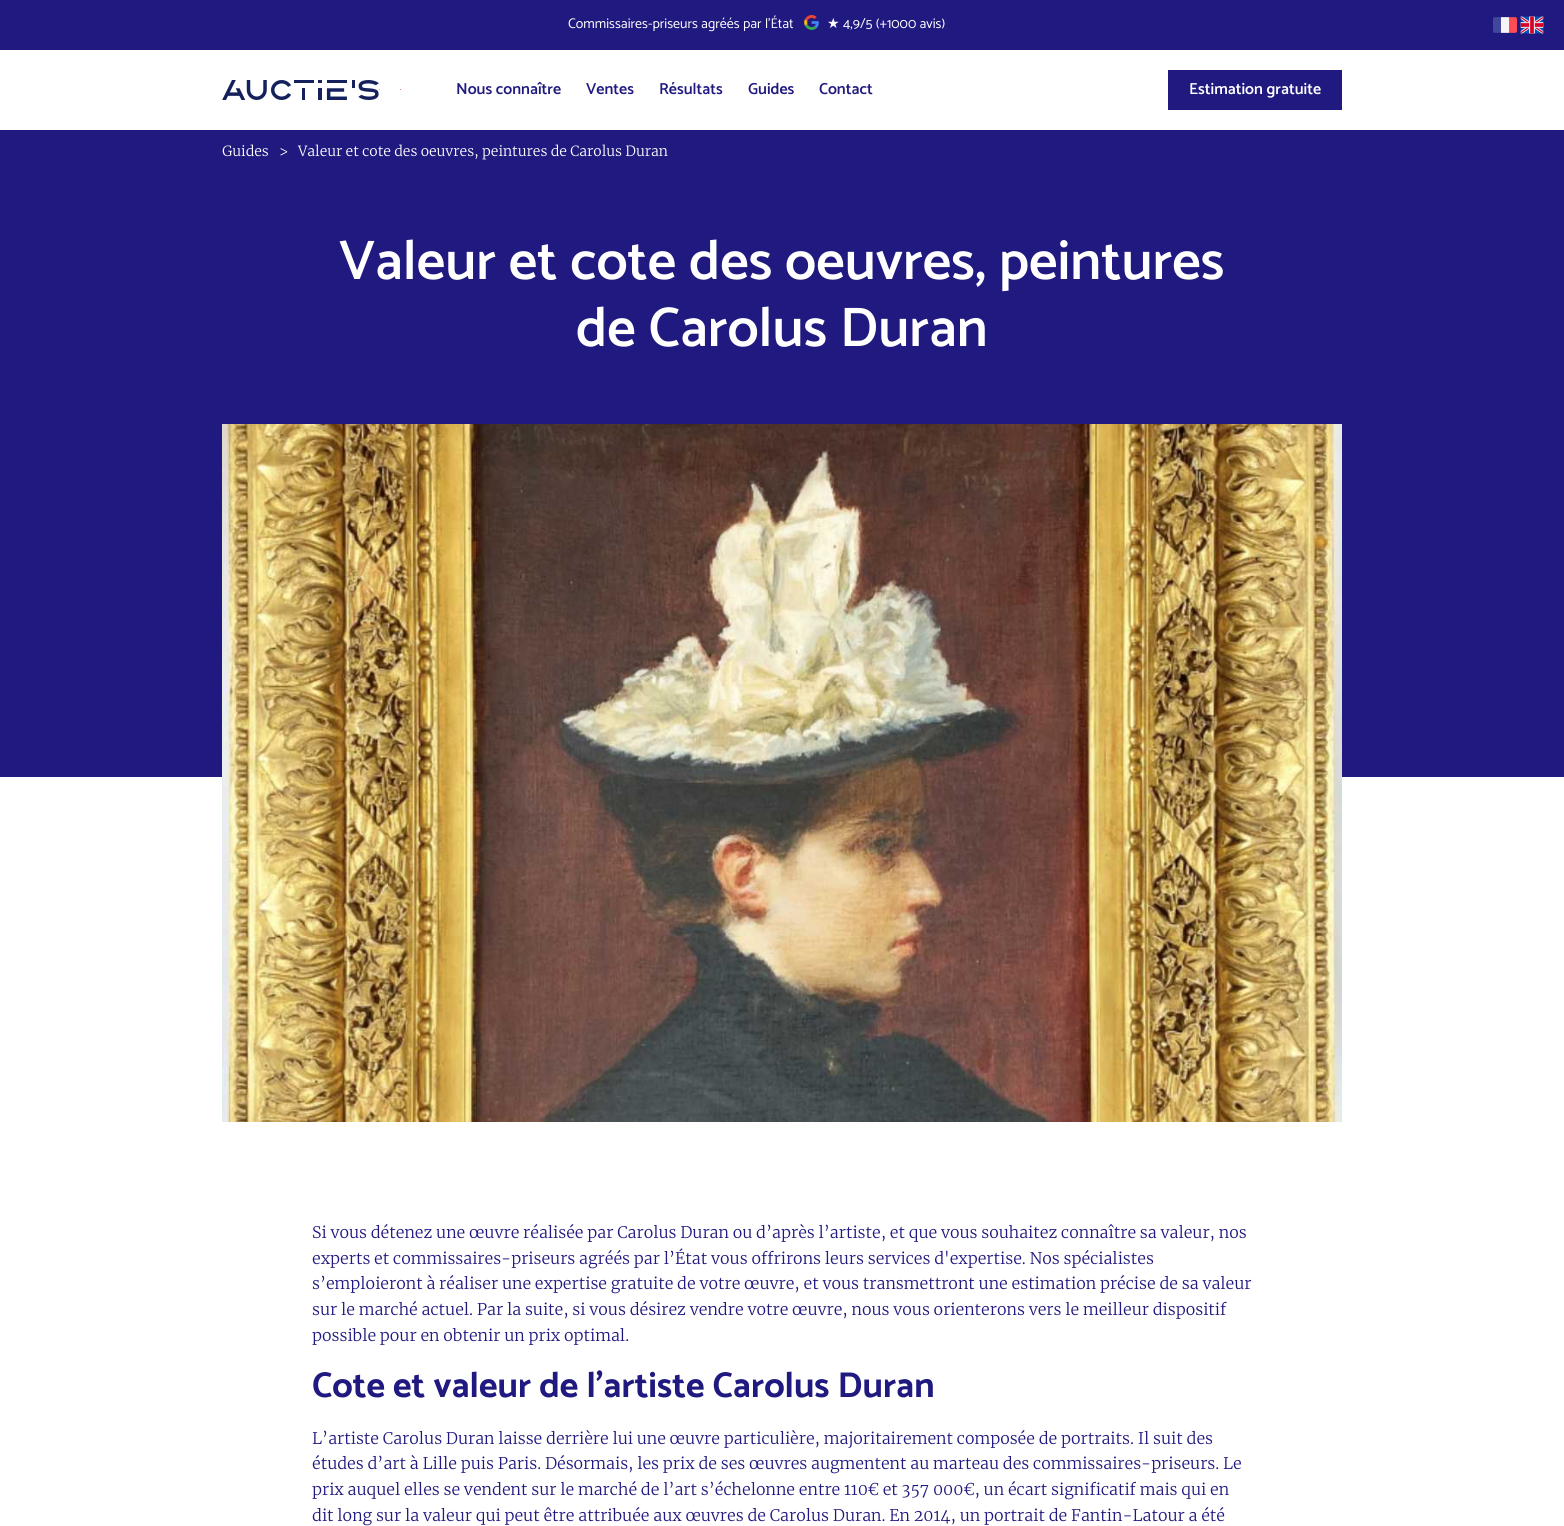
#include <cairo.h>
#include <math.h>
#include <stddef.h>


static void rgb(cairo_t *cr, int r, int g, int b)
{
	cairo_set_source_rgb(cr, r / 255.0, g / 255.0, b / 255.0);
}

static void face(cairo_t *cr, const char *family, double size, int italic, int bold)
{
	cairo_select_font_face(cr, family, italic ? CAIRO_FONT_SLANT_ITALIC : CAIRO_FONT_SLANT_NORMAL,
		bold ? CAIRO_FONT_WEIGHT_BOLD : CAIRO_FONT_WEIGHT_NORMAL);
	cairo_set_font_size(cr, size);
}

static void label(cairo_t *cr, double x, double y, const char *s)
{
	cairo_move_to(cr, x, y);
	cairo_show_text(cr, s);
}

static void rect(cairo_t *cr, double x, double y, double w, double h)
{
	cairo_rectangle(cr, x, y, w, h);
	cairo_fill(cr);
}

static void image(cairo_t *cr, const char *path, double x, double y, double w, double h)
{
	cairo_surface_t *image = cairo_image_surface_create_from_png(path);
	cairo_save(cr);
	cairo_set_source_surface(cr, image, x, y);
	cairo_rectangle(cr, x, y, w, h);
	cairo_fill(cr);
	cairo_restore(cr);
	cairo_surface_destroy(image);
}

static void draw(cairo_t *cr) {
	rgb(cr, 255, 255, 255);
	cairo_paint(cr);
	rgb(cr, 32, 25, 127);
	rect(cr, 0, 0, 1564, 777);
	face(cr, "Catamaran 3 Thin", 14, 0, 0);
	rgb(cr, 255, 255, 255);
	label(cr, 568, 28, "Commissaires-priseurs agréés par l'État");
	image(cr, "image0.png", 804, 15, 15, 15);
	face(cr, "DejaVu Sans", 14, 0, 0);
	label(cr, 827, 28, "★");
	face(cr, "Catamaran 3 Thin", 14, 0, 0);
	label(cr, 843, 28, "4,9/5 (+1000 avis)");
	image(cr, "image1.png", 1493, 17, 24, 16);
	image(cr, "image2.png", 1520, 16, 24, 18);
	rect(cr, 0, 50, 1564, 80);
	image(cr, "image3.png", 222, 80, 157, 20);
	rgb(cr, 216, 184, 201);
	rect(cr, 379, 89, 1, 1);
	rgb(cr, 203, 133, 161);
	rect(cr, 400, 89, 1, 1);
	face(cr, "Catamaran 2 Thin", 16, 0, 0);
	rgb(cr, 32, 25, 127);
	label(cr, 456, 94, "Nous connaître");
	label(cr, 586, 94, "Ventes");
	label(cr, 659, 94, "Résultats");
	label(cr, 748, 94, "Guides");
	label(cr, 819, 94, "Contact");
	rect(cr, 1168, 70, 174, 40);
	rgb(cr, 255, 255, 255);
	label(cr, 1189, 94, "Estimation gratuite");
	image(cr, "image4.png", 222, 424, 1120, 698);
	face(cr, "Merriweather Light", 14, 0, 0);
	label(cr, 222, 156, "Guides");
	label(cr, 279, 156, ">");
	label(cr, 298, 156, "Valeur et cote des oeuvres, peintures de Carolus Duran");
	face(cr, "Catamaran 2 Thin", 56, 0, 0);
	label(cr, 339, 279, "Valeur et cote des oeuvres, peintures");
	label(cr, 576, 346, "de Carolus Duran");
	face(cr, "Merriweather Light", 16, 0, 0);
	rgb(cr, 32, 25, 127);
	label(cr, 312, 1238, "Si vous détenez une œuvre réalisée par Carolus Duran ou d’après l’artiste, et que vous souhaitez connaître sa valeur, nos");
	label(cr, 312, 1264, "experts et commissaires-priseurs agréés par l’État vous offrirons leurs services d'expertise. Nos spécialistes");
	label(cr, 312, 1289, "s’emploieront à réaliser une expertise gratuite de votre œuvre, et vous transmettront une estimation précise de sa valeur");
	label(cr, 312, 1315, "sur le marché actuel. Par la suite, si vous désirez vendre votre œuvre, nous vous orienterons vers le meilleur dispositif");
	label(cr, 312, 1341, "possible pour en obtenir un prix optimal.");
	face(cr, "Catamaran Thin", 36, 0, 0);
	label(cr, 312, 1397, "Cote et valeur de l’artiste Carolus Duran");
	face(cr, "Merriweather Light", 16, 0, 0);
	label(cr, 312, 1444, "L’artiste Carolus Duran laisse derrière lui une œuvre particulière, majoritairement composée de portraits. Il suit des");
	label(cr, 312, 1469, "études d’art à Lille puis Paris. Désormais, les prix de ses œuvres augmentent au marteau des commissaires-priseurs. Le");
	label(cr, 312, 1495, "prix auquel elles se vendent sur le marché de l’art s’échelonne entre 110€ et 357 000€, un écart significatif mais qui en");
	label(cr, 312, 1521, "dit long sur la valeur qui peut être attribuée aux œuvres de Carolus Duran. En 2014, un portrait de Fantin-Latour a été");
}

int main(void) {
	cairo_surface_t *surface = cairo_image_surface_create(CAIRO_FORMAT_RGB24, 1564, 1526);
	cairo_t *cr = cairo_create(surface);
	cairo_font_options_t *options = cairo_font_options_create();
	cairo_font_options_set_hint_metrics(options, CAIRO_HINT_METRICS_OFF);
	cairo_font_options_set_hint_style(options, CAIRO_HINT_STYLE_NONE);
	cairo_set_font_options(cr, options);
	cairo_set_miter_limit(cr, 4);
	draw(cr);
	cairo_surface_write_to_png(surface, "render.png");
	cairo_font_options_destroy(options);
	cairo_destroy(cr);
	cairo_surface_destroy(surface);
	return 0;
}
